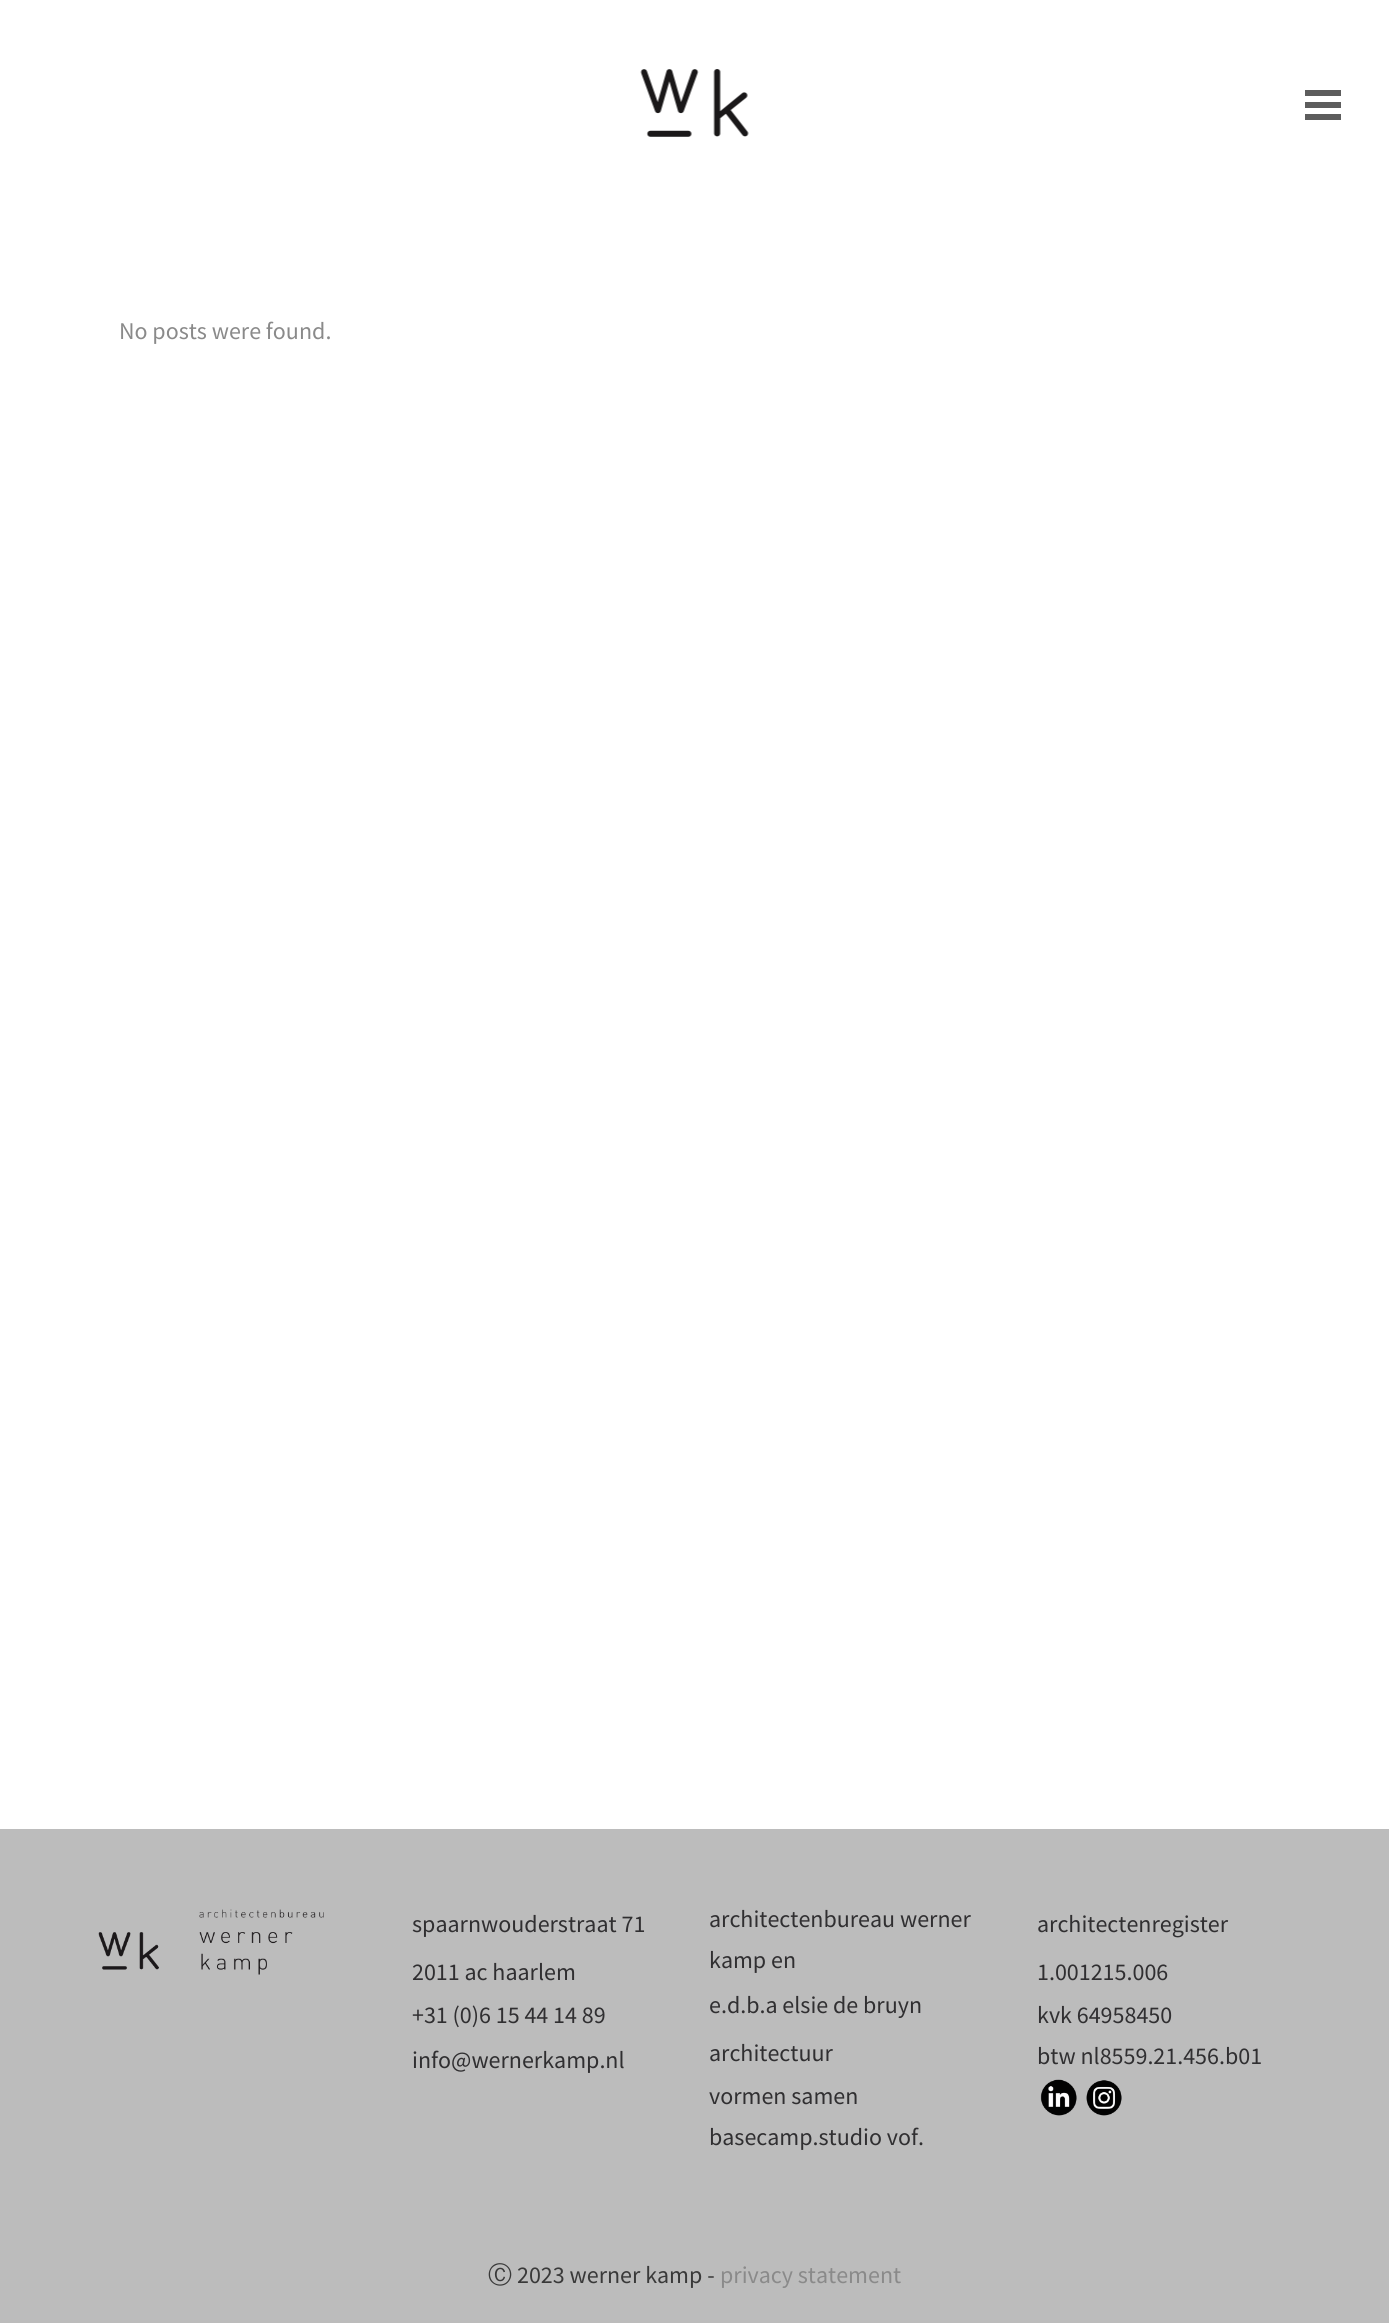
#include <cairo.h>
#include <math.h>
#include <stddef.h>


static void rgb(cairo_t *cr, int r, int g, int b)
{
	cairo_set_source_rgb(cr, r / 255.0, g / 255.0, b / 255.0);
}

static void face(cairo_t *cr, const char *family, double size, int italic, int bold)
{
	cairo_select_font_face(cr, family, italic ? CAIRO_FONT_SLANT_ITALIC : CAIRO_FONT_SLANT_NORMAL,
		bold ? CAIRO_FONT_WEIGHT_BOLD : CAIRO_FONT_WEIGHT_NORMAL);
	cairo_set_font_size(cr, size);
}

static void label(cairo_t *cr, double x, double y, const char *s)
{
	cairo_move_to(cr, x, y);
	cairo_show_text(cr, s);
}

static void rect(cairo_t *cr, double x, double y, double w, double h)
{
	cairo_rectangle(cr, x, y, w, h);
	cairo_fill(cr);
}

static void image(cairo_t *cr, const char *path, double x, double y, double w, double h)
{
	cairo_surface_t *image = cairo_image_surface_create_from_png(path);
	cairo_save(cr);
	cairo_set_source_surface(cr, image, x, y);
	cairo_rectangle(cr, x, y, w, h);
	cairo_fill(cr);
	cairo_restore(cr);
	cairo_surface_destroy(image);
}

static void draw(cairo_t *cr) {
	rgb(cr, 255, 255, 255);
	cairo_paint(cr);
	image(cr, "image0.png", 640, 69, 109, 68);
	rgb(cr, 93, 93, 93);
	rect(cr, 1305, 102, 36, 6);
	rect(cr, 1305, 90, 36, 6);
	rect(cr, 1305, 114, 36, 6);
	face(cr, "Source Sans Pro", 24, 0, 0);
	rgb(cr, 138, 138, 138);
	label(cr, 119, 339, "No posts were found.");
	rgb(cr, 188, 188, 188);
	rect(cr, 0, 1829, 1389, 494);
	image(cr, "image1.png", 98, 1909, 226, 66);
	rgb(cr, 48, 47, 49);
	label(cr, 412, 1932, "spaarnwouderstraat 71");
	label(cr, 412, 1980, "2011 ac haarlem");
	label(cr, 412, 2023, "+31 (0)6 15 44 14 89");
	label(cr, 412, 2068, "info@wernerkamp.nl");
	label(cr, 709, 1927, "architectenbureau werner");
	label(cr, 709, 1968, "kamp en");
	label(cr, 709, 2013, "e.d.b.a elsie de bruyn");
	label(cr, 709, 2061, "architectuur");
	label(cr, 709, 2104, "vormen samen");
	label(cr, 709, 2145, "basecamp.studio vof.");
	label(cr, 1037, 1932, "architectenregister");
	label(cr, 1037, 1980, "1.001215.006");
	label(cr, 1037, 2023, "kvk 64958450");
	label(cr, 1037, 2064, "btw nl8559.21.456.b01");
	image(cr, "image2.png", 1040, 2079, 37, 37);
	image(cr, "image3.png", 1086, 2080, 36, 36);
	face(cr, "WenQuanYi Zen Hei Medium", 24, 0, 0);
	rgb(cr, 57, 57, 57);
	label(cr, 488, 2283, "Ⓒ");
	face(cr, "Source Sans Pro", 24, 0, 0);
	label(cr, 517, 2283, "2023 werner kamp -");
	rgb(cr, 138, 138, 138);
	label(cr, 720, 2283, "privacy statement");
}

int main(void) {
	cairo_surface_t *surface = cairo_image_surface_create(CAIRO_FORMAT_RGB24, 1389, 2323);
	cairo_t *cr = cairo_create(surface);
	cairo_font_options_t *options = cairo_font_options_create();
	cairo_font_options_set_hint_metrics(options, CAIRO_HINT_METRICS_OFF);
	cairo_font_options_set_hint_style(options, CAIRO_HINT_STYLE_NONE);
	cairo_set_font_options(cr, options);
	cairo_set_miter_limit(cr, 4);
	draw(cr);
	cairo_surface_write_to_png(surface, "render.png");
	cairo_font_options_destroy(options);
	cairo_destroy(cr);
	cairo_surface_destroy(surface);
	return 0;
}
